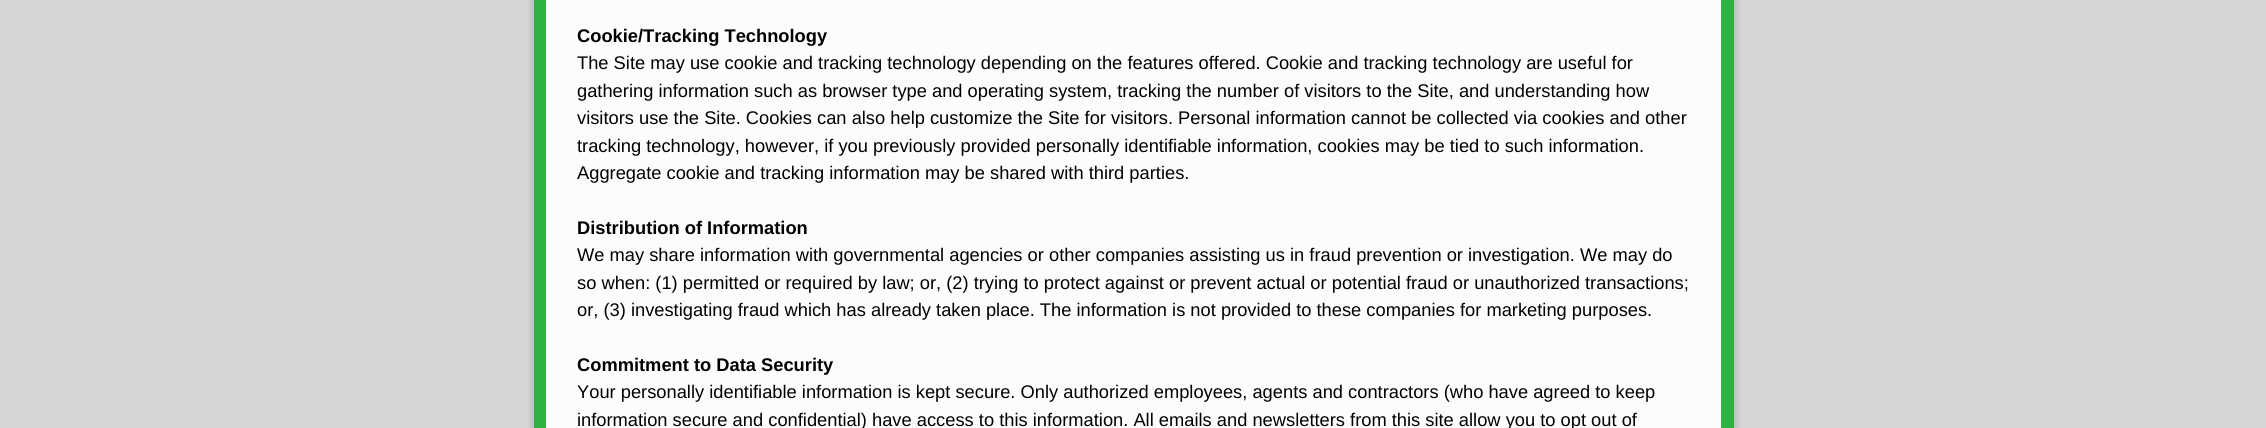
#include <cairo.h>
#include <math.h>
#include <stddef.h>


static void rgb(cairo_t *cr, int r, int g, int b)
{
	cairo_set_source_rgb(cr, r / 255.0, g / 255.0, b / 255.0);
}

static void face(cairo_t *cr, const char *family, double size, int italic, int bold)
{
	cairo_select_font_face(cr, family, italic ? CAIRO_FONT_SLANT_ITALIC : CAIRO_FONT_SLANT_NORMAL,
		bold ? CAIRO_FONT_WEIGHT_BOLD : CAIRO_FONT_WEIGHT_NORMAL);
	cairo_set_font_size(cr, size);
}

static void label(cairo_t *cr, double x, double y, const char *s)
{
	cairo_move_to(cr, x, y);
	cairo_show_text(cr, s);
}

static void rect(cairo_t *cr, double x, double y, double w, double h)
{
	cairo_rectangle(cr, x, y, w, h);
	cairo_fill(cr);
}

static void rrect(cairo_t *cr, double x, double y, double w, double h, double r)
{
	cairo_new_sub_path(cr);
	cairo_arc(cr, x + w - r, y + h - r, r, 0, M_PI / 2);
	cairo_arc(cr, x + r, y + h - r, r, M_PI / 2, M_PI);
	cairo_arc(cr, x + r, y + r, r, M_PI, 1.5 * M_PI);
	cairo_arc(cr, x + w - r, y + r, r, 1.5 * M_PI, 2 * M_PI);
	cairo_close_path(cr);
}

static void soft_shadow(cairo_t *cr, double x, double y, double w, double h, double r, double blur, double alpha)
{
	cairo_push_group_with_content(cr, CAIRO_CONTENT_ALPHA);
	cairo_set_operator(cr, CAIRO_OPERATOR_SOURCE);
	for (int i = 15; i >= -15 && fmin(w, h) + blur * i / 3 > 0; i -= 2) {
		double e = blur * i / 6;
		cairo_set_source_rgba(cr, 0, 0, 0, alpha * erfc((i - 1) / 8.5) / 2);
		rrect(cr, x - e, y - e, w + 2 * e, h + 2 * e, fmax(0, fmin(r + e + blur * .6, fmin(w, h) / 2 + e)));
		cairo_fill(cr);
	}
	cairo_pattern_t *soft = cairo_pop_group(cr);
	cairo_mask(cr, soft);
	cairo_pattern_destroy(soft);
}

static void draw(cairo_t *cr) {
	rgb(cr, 214, 214, 214);
	cairo_paint(cr);
	rgb(cr, 127, 127, 127);
	soft_shadow(cr, 530, -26, 1208, 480, 20, 2, 0.25);
	rgb(cr, 47, 179, 64);
	rect(cr, 534, 0, 1200, 428);
	rgb(cr, 252, 252, 252);
	rect(cr, 546, 0, 1175, 428);
	face(cr, "Liberation Sans", 18.3, 0, 1);
	rgb(cr, 0, 0, 0);
	label(cr, 577, 42, "Cookie/Tracking Technology");
	face(cr, "Liberation Sans", 18.3, 0, 0);
	label(cr, 577, 69, "The Site may use cookie and tracking technology depending on the features offered. Cookie and tracking technology are useful for");
	label(cr, 577, 97, "gathering information such as browser type and operating system, tracking the number of visitors to the Site, and understanding how");
	label(cr, 577, 124, "visitors use the Site. Cookies can also help customize the Site for visitors. Personal information cannot be collected via cookies and other");
	label(cr, 577, 152, "tracking technology, however, if you previously provided personally identifiable information, cookies may be tied to such information.");
	label(cr, 577, 179, "Aggregate cookie and tracking information may be shared with third parties.");
	face(cr, "Liberation Sans", 18.3, 0, 1);
	label(cr, 577, 234, "Distribution of Information");
	face(cr, "Liberation Sans", 18.3, 0, 0);
	label(cr, 577, 261, "We may share information with governmental agencies or other companies assisting us in fraud prevention or investigation. We may do");
	label(cr, 577, 289, "so when: (1) permitted or required by law; or, (2) trying to protect against or prevent actual or potential fraud or unauthorized transactions;");
	label(cr, 577, 316, "or, (3) investigating fraud which has already taken place. The information is not provided to these companies for marketing purposes.");
	face(cr, "Liberation Sans", 18.3, 0, 1);
	label(cr, 577, 371, "Commitment to Data Security");
	face(cr, "Liberation Sans", 18.3, 0, 0);
	label(cr, 577, 398, "Your personally identifiable information is kept secure. Only authorized employees, agents and contractors (who have agreed to keep");
	label(cr, 577, 426, "information secure and confidential) have access to this information. All emails and newsletters from this site allow you to opt out of");
}

int main(void) {
	cairo_surface_t *surface = cairo_image_surface_create(CAIRO_FORMAT_RGB24, 2266, 428);
	cairo_t *cr = cairo_create(surface);
	cairo_font_options_t *options = cairo_font_options_create();
	cairo_font_options_set_hint_metrics(options, CAIRO_HINT_METRICS_OFF);
	cairo_font_options_set_hint_style(options, CAIRO_HINT_STYLE_NONE);
	cairo_set_font_options(cr, options);
	cairo_set_miter_limit(cr, 4);
	draw(cr);
	cairo_surface_write_to_png(surface, "render.png");
	cairo_font_options_destroy(options);
	cairo_destroy(cr);
	cairo_surface_destroy(surface);
	return 0;
}
